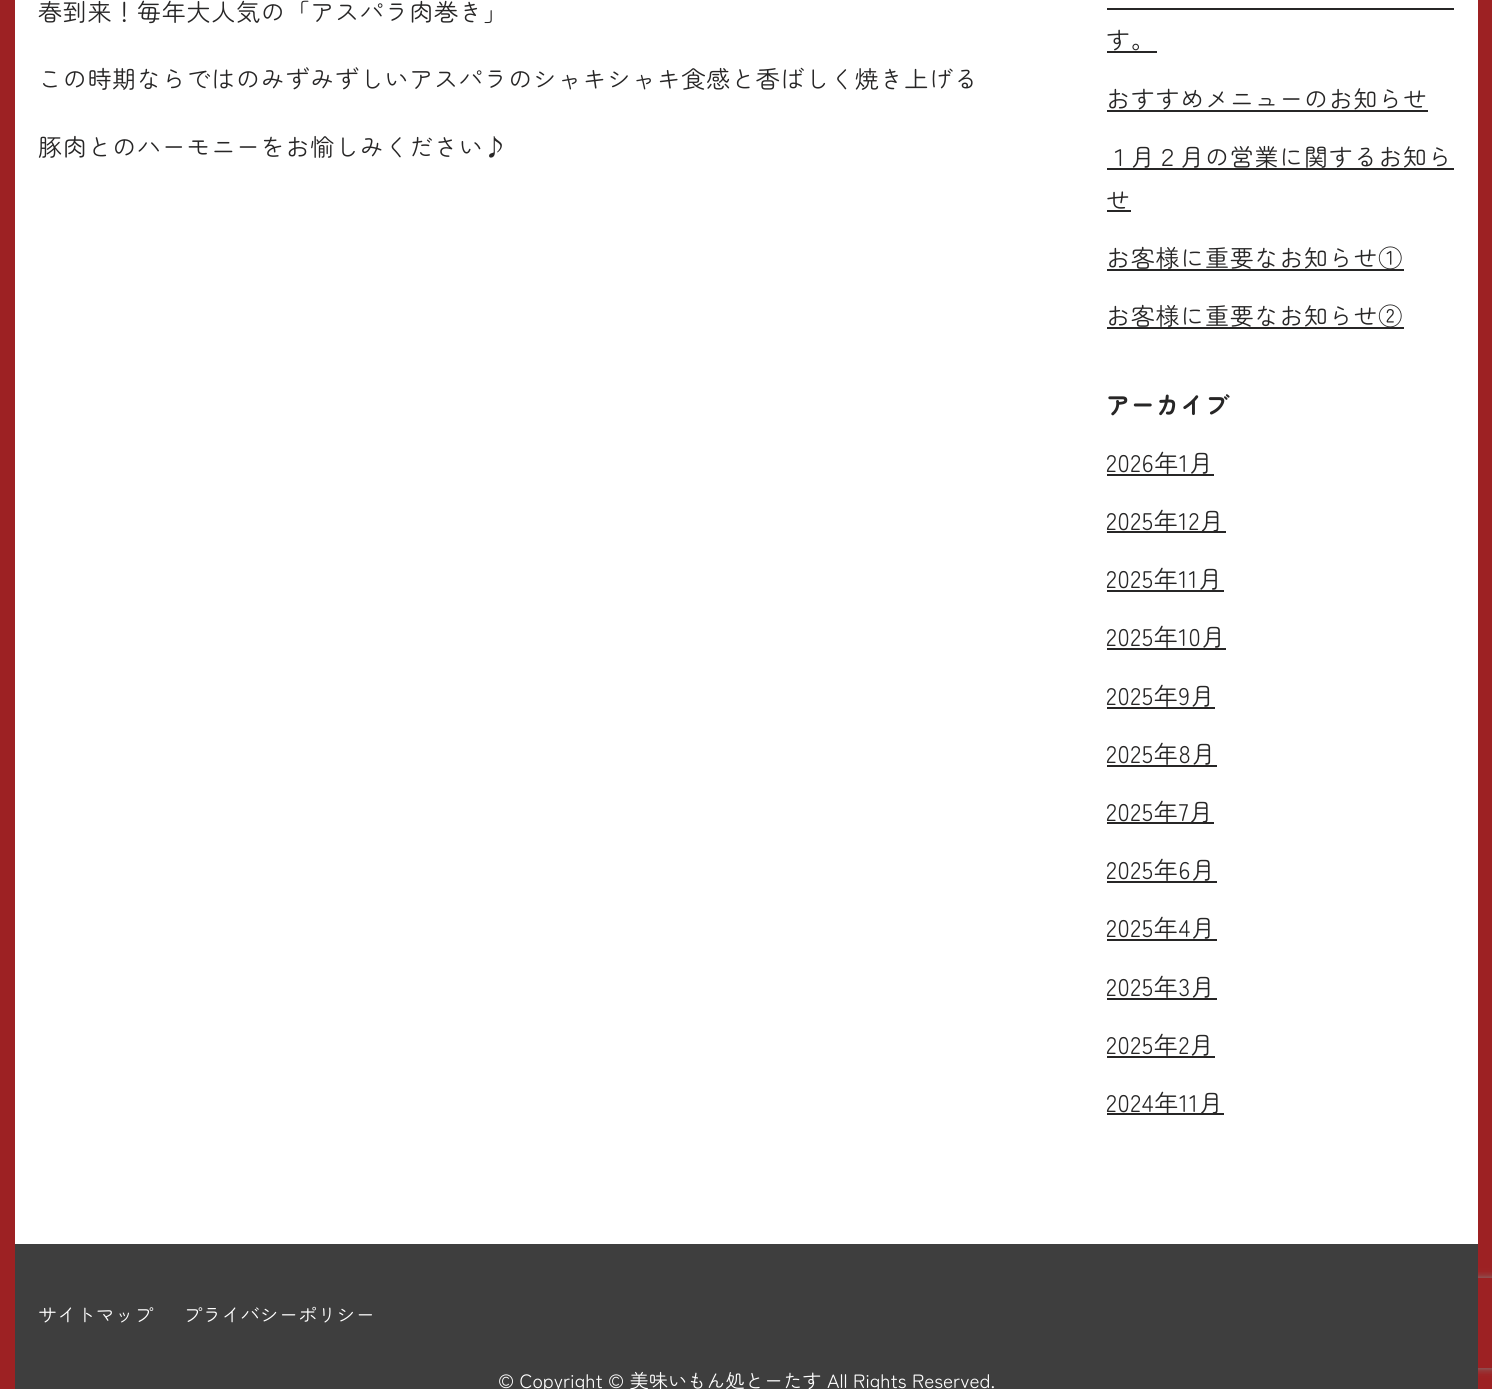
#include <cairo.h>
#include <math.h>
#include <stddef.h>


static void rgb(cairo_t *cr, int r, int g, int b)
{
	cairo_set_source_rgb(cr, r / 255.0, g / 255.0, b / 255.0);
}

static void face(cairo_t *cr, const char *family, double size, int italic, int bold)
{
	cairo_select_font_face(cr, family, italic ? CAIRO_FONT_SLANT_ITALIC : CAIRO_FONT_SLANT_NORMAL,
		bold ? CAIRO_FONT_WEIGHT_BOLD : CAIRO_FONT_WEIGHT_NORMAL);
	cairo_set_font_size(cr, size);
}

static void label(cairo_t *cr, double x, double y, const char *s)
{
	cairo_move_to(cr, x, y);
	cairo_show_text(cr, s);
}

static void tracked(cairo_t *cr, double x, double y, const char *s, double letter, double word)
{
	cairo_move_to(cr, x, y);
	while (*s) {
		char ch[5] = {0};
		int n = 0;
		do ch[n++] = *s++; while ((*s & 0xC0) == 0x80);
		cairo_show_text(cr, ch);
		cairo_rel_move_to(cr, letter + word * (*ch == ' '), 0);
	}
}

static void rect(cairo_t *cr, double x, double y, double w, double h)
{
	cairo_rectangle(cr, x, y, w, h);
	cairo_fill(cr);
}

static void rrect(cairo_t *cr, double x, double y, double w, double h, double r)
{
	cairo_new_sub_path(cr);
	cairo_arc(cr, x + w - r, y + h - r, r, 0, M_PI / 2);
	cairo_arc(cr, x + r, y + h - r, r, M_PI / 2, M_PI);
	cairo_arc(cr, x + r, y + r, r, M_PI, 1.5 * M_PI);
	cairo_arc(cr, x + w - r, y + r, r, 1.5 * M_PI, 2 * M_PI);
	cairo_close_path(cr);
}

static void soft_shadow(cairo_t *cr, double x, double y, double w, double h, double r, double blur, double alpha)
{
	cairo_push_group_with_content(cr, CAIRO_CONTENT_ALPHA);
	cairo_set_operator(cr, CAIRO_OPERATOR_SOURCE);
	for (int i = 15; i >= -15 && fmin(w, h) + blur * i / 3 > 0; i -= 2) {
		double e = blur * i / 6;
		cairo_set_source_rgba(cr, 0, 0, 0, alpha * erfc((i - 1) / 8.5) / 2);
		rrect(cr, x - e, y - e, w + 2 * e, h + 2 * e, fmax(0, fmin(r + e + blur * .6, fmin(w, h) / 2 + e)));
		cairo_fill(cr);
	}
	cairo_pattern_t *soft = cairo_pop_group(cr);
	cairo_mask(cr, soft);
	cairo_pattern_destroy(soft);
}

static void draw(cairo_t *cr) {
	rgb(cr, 255, 255, 255);
	cairo_paint(cr);
	cairo_rectangle(cr, 7.5, -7.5, 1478, 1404);
	rgb(cr, 157, 33, 35);
	cairo_set_line_width(cr, 15);
	cairo_stroke(cr);
	face(cr, "Zen Maru Gothic", 24, 0, 0);
	rgb(cr, 39, 38, 38);
	tracked(cr, 38, 21, "春到来！毎年大人気の「アスパラ肉巻き」", 0.75, 0);
	tracked(cr, 38, 88, "この時期ならではのみずみずしいアスパラのシャキシャキ食感と香ばしく焼き上げる", 0.75, 0);
	tracked(cr, 38, 156, "豚肉とのハーモニーをお愉しみください♪", 0.75, 0);
	tracked(cr, 1106, 49, "す。", 0.75, 0);
	rect(cr, 1107, 8, 347, 2);
	rect(cr, 1107, 51, 50, 2);
	tracked(cr, 1106, 108, "おすすめメニューのお知らせ", 0.75, 0);
	rect(cr, 1107, 110, 321, 2);
	rect(cr, 1107, 168, 347, 2);
	tracked(cr, 1106, 166, "１月２月の営業に関するお知ら", 0.75, 0);
	tracked(cr, 1106, 209, "せ", 0.75, 0);
	rect(cr, 1107, 210, 24, 2);
	rect(cr, 1107, 269, 297, 2);
	tracked(cr, 1106, 267, "お客様に重要なお知らせ①", 0.75, 0);
	rect(cr, 1107, 327, 297, 2);
	tracked(cr, 1106, 325, "お客様に重要なお知らせ②", 0.75, 0);
	face(cr, "Zen Maru Gothic", 24, 0, 1);
	tracked(cr, 1106, 414, "アーカイブ", 0.75, 0);
	rect(cr, 1107, 474, 107, 2);
	face(cr, "Zen Maru Gothic", 24, 0, 0);
	tracked(cr, 1106, 472, "2026年1月", 0.75, 0);
	rect(cr, 1107, 531, 119, 2);
	tracked(cr, 1106, 530, "2025年12月", 0.75, 0);
	rect(cr, 1107, 590, 117, 2);
	tracked(cr, 1106, 588, "2025年11月", 0.75, 0);
	rect(cr, 1107, 648, 119, 2);
	tracked(cr, 1106, 646, "2025年10月", 0.75, 0);
	rect(cr, 1107, 707, 108, 2);
	tracked(cr, 1106, 705, "2025年9月", 0.75, 0);
	rect(cr, 1107, 765, 110, 2);
	tracked(cr, 1106, 763, "2025年8月", 0.75, 0);
	rect(cr, 1107, 822, 107, 2);
	tracked(cr, 1106, 821, "2025年7月", 0.75, 0);
	rect(cr, 1107, 881, 110, 2);
	tracked(cr, 1106, 879, "2025年6月", 0.75, 0);
	rect(cr, 1107, 939, 110, 2);
	tracked(cr, 1106, 937, "2025年4月", 0.75, 0);
	rect(cr, 1107, 998, 110, 2);
	tracked(cr, 1106, 996, "2025年3月", 0.75, 0);
	rect(cr, 1107, 1056, 108, 2);
	tracked(cr, 1106, 1054, "2025年2月", 0.75, 0);
	rect(cr, 1107, 1113, 117, 2);
	tracked(cr, 1106, 1112, "2024年11月", 0.75, 0);
	cairo_save(cr);
	cairo_set_fill_rule(cr, CAIRO_FILL_RULE_EVEN_ODD);
	cairo_new_path(cr);
	cairo_move_to(cr, 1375, 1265);
	cairo_line_to(cr, 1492, 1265);
	cairo_line_to(cr, 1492, 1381);
	cairo_line_to(cr, 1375, 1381);
	cairo_close_path(cr);
	cairo_move_to(cr, 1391, 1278);
	cairo_line_to(cr, 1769, 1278);
	cairo_curve_to(cr, 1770.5, 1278, 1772, 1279.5, 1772, 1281);
	cairo_line_to(cr, 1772, 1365);
	cairo_curve_to(cr, 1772, 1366.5, 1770.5, 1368, 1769, 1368);
	cairo_line_to(cr, 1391, 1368);
	cairo_curve_to(cr, 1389.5, 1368, 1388, 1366.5, 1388, 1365);
	cairo_line_to(cr, 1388, 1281);
	cairo_curve_to(cr, 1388, 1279.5, 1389.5, 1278, 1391, 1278);
	cairo_close_path(cr);
	cairo_clip(cr);
	rgb(cr, 128, 128, 128);
	soft_shadow(cr, 1388, 1278, 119, 90, 3, 4, 1);
	cairo_restore(cr);
	rgb(cr, 62, 62, 62);
	rect(cr, 15, 1244, 1463, 145);
	face(cr, "Zen Maru Gothic", 19.2, 0, 0);
	rgb(cr, 255, 255, 255);
	label(cr, 38, 1322, "サイトマップ");
	label(cr, 183, 1322, "プライバシーポリシー");
	label(cr, 498, 1388, "© Copyright © 美味いもん処とーたす All Rights Reserved.");
}

int main(void) {
	cairo_surface_t *surface = cairo_image_surface_create(CAIRO_FORMAT_RGB24, 1492, 1389);
	cairo_t *cr = cairo_create(surface);
	cairo_font_options_t *options = cairo_font_options_create();
	cairo_font_options_set_hint_metrics(options, CAIRO_HINT_METRICS_OFF);
	cairo_font_options_set_hint_style(options, CAIRO_HINT_STYLE_NONE);
	cairo_set_font_options(cr, options);
	cairo_set_miter_limit(cr, 4);
	draw(cr);
	cairo_surface_write_to_png(surface, "render.png");
	cairo_font_options_destroy(options);
	cairo_destroy(cr);
	cairo_surface_destroy(surface);
	return 0;
}
